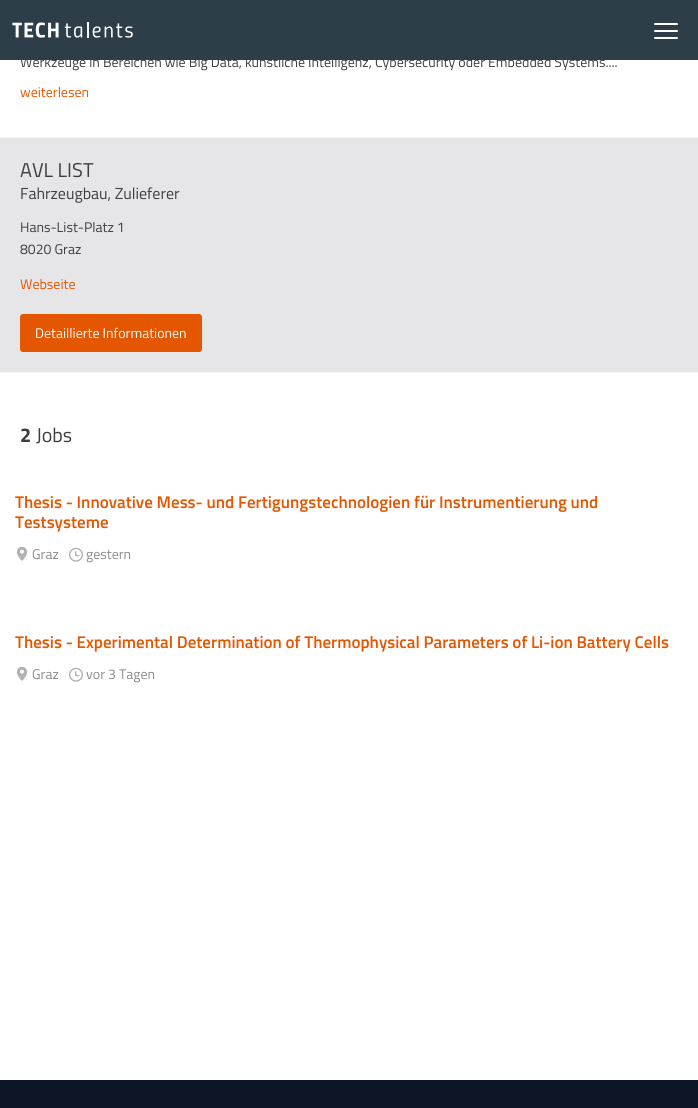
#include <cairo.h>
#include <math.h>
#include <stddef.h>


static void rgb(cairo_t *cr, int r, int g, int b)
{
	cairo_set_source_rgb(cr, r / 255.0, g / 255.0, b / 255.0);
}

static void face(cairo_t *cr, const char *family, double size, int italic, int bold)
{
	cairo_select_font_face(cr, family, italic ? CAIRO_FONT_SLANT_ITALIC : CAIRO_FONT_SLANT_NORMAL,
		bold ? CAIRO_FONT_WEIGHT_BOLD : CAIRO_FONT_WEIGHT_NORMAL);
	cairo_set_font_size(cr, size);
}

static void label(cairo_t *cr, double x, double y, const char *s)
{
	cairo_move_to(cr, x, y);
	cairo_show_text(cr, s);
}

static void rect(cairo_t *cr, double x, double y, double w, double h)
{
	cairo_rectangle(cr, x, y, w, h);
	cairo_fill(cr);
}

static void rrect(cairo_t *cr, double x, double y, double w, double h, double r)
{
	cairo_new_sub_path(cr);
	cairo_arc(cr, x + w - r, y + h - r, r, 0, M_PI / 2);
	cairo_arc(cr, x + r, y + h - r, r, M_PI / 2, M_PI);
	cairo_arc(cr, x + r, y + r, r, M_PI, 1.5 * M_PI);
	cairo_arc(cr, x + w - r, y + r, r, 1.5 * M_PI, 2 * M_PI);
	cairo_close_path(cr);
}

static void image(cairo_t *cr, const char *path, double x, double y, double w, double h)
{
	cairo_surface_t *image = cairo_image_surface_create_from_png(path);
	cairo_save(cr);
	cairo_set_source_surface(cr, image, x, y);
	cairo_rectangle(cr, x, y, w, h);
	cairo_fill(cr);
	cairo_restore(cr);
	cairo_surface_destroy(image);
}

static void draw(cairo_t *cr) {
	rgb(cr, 13, 20, 35);
	cairo_paint(cr);
	rgb(cr, 255, 255, 255);
	rect(cr, 0, 60, 698, 1020);
	face(cr, "Titillium Web", 14, 0, 0);
	rgb(cr, 61, 62, 64);
	label(cr, 20, 67, "Werkzeuge in Bereichen wie Big Data, künstliche Intelligenz, Cybersecurity oder Embedded Systems....");
	rgb(cr, 45, 62, 72);
	rect(cr, 0, 0, 698, 60);
	image(cr, "image0.png", 12, 22, 121, 16);
	rgb(cr, 255, 255, 255);
	rrect(cr, 654, 23, 24, 2, 1);
	cairo_fill(cr);
	rrect(cr, 654, 30, 24, 2, 1);
	cairo_fill(cr);
	rrect(cr, 654, 37, 24, 2, 1);
	cairo_fill(cr);
	rgb(cr, 228, 86, 0);
	label(cr, 20, 97, "weiterlesen");
	rgb(cr, 230, 230, 233);
	rect(cr, 0, 138, 698, 234);
	rgb(cr, 243, 244, 245);
	rect(cr, 0, 137, 698, 1);
	rect(cr, 0, 372, 698, 1);
	face(cr, "Titillium Web", 20, 0, 0);
	rgb(cr, 61, 62, 64);
	label(cr, 20, 177, "AVL LIST");
	face(cr, "Titillium Web", 16, 0, 0);
	label(cr, 20, 199, "Fahrzeugbau, Zulieferer");
	face(cr, "Titillium Web", 14, 0, 0);
	label(cr, 20, 232, "Hans-List-Platz 1");
	label(cr, 20, 254, "8020 Graz");
	rgb(cr, 228, 86, 0);
	label(cr, 20, 289, "Webseite");
	rrect(cr, 20, 314, 182, 38, 3);
	cairo_fill(cr);
	rgb(cr, 255, 255, 255);
	label(cr, 35, 338, "Detaillierte Informationen");
	face(cr, "Titillium Web", 20, 0, 1);
	rgb(cr, 61, 62, 64);
	label(cr, 20, 442, "2");
	face(cr, "Titillium Web", 20, 0, 0);
	label(cr, 36, 442, "Jobs");
	face(cr, "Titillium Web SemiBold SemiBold", 17, 0, 0);
	rgb(cr, 228, 86, 0);
	label(cr, 15, 508, "Thesis - Innovative Mess- und Fertigungstechnologien für Instrumentierung und");
	label(cr, 15, 528, "Testsysteme");
	image(cr, "image1.png", 16, 546, 12, 15);
	face(cr, "Titillium Web", 14, 0, 0);
	rgb(cr, 140, 140, 140);
	label(cr, 32, 559, "Graz");
	image(cr, "image2.png", 69, 547, 14, 15);
	label(cr, 86, 559, "gestern");
	face(cr, "Titillium Web SemiBold SemiBold", 17, 0, 0);
	rgb(cr, 228, 86, 0);
	label(cr, 15, 648, "Thesis - Experimental Determination of Thermophysical Parameters of Li-ion Battery Cells");
	image(cr, "image1.png", 16, 666, 12, 15);
	face(cr, "Titillium Web", 14, 0, 0);
	rgb(cr, 140, 140, 140);
	label(cr, 32, 679, "Graz");
	image(cr, "image2.png", 69, 667, 14, 15);
	label(cr, 86, 679, "vor 3 Tagen");
}

int main(void) {
	cairo_surface_t *surface = cairo_image_surface_create(CAIRO_FORMAT_RGB24, 698, 1108);
	cairo_t *cr = cairo_create(surface);
	cairo_font_options_t *options = cairo_font_options_create();
	cairo_font_options_set_hint_metrics(options, CAIRO_HINT_METRICS_OFF);
	cairo_font_options_set_hint_style(options, CAIRO_HINT_STYLE_NONE);
	cairo_set_font_options(cr, options);
	cairo_set_miter_limit(cr, 4);
	draw(cr);
	cairo_surface_write_to_png(surface, "render.png");
	cairo_font_options_destroy(options);
	cairo_destroy(cr);
	cairo_surface_destroy(surface);
	return 0;
}
